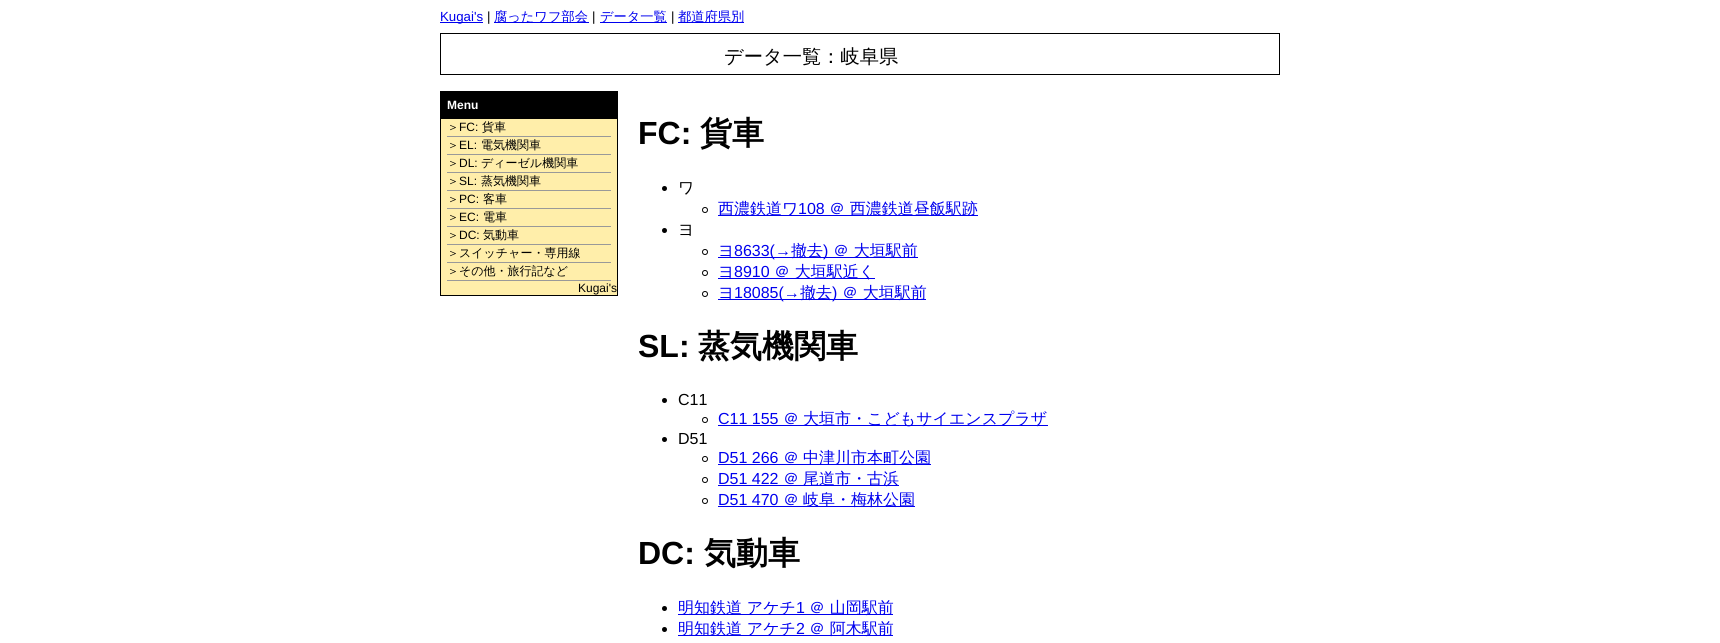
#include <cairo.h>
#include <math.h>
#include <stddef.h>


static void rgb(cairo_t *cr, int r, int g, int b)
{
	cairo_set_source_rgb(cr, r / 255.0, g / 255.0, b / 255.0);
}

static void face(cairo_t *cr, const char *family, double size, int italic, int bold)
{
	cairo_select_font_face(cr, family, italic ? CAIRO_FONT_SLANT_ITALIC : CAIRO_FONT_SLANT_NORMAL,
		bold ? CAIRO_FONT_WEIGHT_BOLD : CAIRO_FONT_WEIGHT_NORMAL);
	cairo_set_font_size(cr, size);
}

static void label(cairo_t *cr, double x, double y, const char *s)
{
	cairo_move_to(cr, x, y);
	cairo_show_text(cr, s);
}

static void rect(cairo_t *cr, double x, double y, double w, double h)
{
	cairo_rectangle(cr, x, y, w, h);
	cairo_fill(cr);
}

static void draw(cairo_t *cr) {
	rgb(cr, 255, 255, 255);
	cairo_paint(cr);
	rgb(cr, 0, 0, 238);
	rect(cr, 440, 22, 43, 1);
	face(cr, "Liberation Sans", 13.25, 0, 0);
	label(cr, 440, 21, "Kugai's");
	rgb(cr, 0, 0, 0);
	label(cr, 487, 21, "|");
	rgb(cr, 0, 0, 238);
	rect(cr, 494, 22, 95, 1);
	face(cr, "WenQuanYi Zen Hei Medium", 13.25, 0, 0);
	label(cr, 494, 21, "腐ったワフ部会");
	face(cr, "Liberation Sans", 13.25, 0, 0);
	rgb(cr, 0, 0, 0);
	label(cr, 592, 21, "|");
	rgb(cr, 0, 0, 238);
	rect(cr, 600, 22, 67, 1);
	face(cr, "WenQuanYi Zen Hei Medium", 13.25, 0, 0);
	label(cr, 600, 21, "データ一覧");
	face(cr, "Liberation Sans", 13.25, 0, 0);
	rgb(cr, 0, 0, 0);
	label(cr, 671, 21, "|");
	rgb(cr, 0, 0, 238);
	rect(cr, 678, 22, 66, 1);
	face(cr, "WenQuanYi Zen Hei Medium", 13.25, 0, 0);
	label(cr, 678, 21, "都道府県別");
	cairo_rectangle(cr, 440.5, 33.5, 839, 41);
	rgb(cr, 0, 0, 0);
	cairo_set_line_width(cr, 1);
	cairo_stroke(cr);
	face(cr, "WenQuanYi Zen Hei Medium", 19.25, 0, 0);
	label(cr, 724, 63, "データ一覧：岐阜県");
	rgb(cr, 255, 238, 170);
	rect(cr, 441, 119, 176, 176);
	cairo_rectangle(cr, 440.5, 91.5, 177, 204);
	rgb(cr, 0, 0, 0);
	cairo_stroke(cr);
	rect(cr, 441, 92, 176, 27);
	face(cr, "Liberation Sans", 12, 0, 1);
	rgb(cr, 255, 255, 255);
	label(cr, 447, 109, "Menu");
	rgb(cr, 153, 153, 153);
	rect(cr, 447, 136, 164, 1);
	face(cr, "WenQuanYi Zen Hei Medium", 12, 0, 0);
	rgb(cr, 0, 0, 0);
	label(cr, 447, 131, "＞");
	face(cr, "Liberation Sans", 12, 0, 0);
	label(cr, 459, 131, "FC:");
	face(cr, "WenQuanYi Zen Hei Medium", 12, 0, 0);
	label(cr, 482, 131, "貨車");
	rgb(cr, 153, 153, 153);
	rect(cr, 447, 154, 164, 1);
	rgb(cr, 0, 0, 0);
	label(cr, 447, 149, "＞");
	face(cr, "Liberation Sans", 12, 0, 0);
	label(cr, 459, 149, "EL:");
	face(cr, "WenQuanYi Zen Hei Medium", 12, 0, 0);
	label(cr, 481, 149, "電気機関車");
	rgb(cr, 153, 153, 153);
	rect(cr, 447, 172, 164, 1);
	rgb(cr, 0, 0, 0);
	label(cr, 447, 167, "＞");
	face(cr, "Liberation Sans", 12, 0, 0);
	label(cr, 459, 167, "DL:");
	face(cr, "WenQuanYi Zen Hei Medium", 12, 0, 0);
	label(cr, 481, 167, "ディーゼル機関車");
	rgb(cr, 153, 153, 153);
	rect(cr, 447, 190, 164, 1);
	rgb(cr, 0, 0, 0);
	label(cr, 447, 185, "＞");
	face(cr, "Liberation Sans", 12, 0, 0);
	label(cr, 459, 185, "SL:");
	face(cr, "WenQuanYi Zen Hei Medium", 12, 0, 0);
	label(cr, 481, 185, "蒸気機関車");
	rgb(cr, 153, 153, 153);
	rect(cr, 447, 208, 164, 1);
	rgb(cr, 0, 0, 0);
	label(cr, 447, 203, "＞");
	face(cr, "Liberation Sans", 12, 0, 0);
	label(cr, 459, 203, "PC:");
	face(cr, "WenQuanYi Zen Hei Medium", 12, 0, 0);
	label(cr, 483, 203, "客車");
	rgb(cr, 153, 153, 153);
	rect(cr, 447, 226, 164, 1);
	rgb(cr, 0, 0, 0);
	label(cr, 447, 221, "＞");
	face(cr, "Liberation Sans", 12, 0, 0);
	label(cr, 459, 221, "EC:");
	face(cr, "WenQuanYi Zen Hei Medium", 12, 0, 0);
	label(cr, 483, 221, "電車");
	rgb(cr, 153, 153, 153);
	rect(cr, 447, 244, 164, 1);
	rgb(cr, 0, 0, 0);
	label(cr, 447, 239, "＞");
	face(cr, "Liberation Sans", 12, 0, 0);
	label(cr, 459, 239, "DC:");
	face(cr, "WenQuanYi Zen Hei Medium", 12, 0, 0);
	label(cr, 483, 239, "気動車");
	rgb(cr, 153, 153, 153);
	rect(cr, 447, 262, 164, 1);
	rgb(cr, 0, 0, 0);
	label(cr, 447, 257, "＞スイッチャー・専用線");
	rgb(cr, 153, 153, 153);
	rect(cr, 447, 280, 164, 1);
	rgb(cr, 0, 0, 0);
	label(cr, 447, 275, "＞その他・旅行記など");
	face(cr, "Liberation Sans", 12, 0, 0);
	label(cr, 578, 292, "Kugai's");
	face(cr, "Liberation Sans", 32, 0, 1);
	label(cr, 638, 144, "FC:");
	face(cr, "WenQuanYi Zen Hei", 32, 0, 1);
	label(cr, 700, 144, "貨車");
	cairo_new_path(cr);
	cairo_arc(cr, 664.5, 188.5, 2.5, 0, 2 * M_PI);
	cairo_fill(cr);
	face(cr, "WenQuanYi Zen Hei Medium", 16, 0, 0);
	label(cr, 678, 193, "ワ");
	cairo_new_path(cr);
	cairo_arc(cr, 705, 210, 2.5, 0, 2 * M_PI);
	cairo_stroke(cr);
	rgb(cr, 0, 0, 238);
	rect(cr, 718, 215, 260, 1);
	label(cr, 718, 214, "西濃鉄道ワ");
	face(cr, "Liberation Sans", 16, 0, 0);
	label(cr, 798, 214, "108");
	face(cr, "WenQuanYi Zen Hei Medium", 16, 0, 0);
	label(cr, 829, 214, "＠ 西濃鉄道昼飯駅跡");
	rgb(cr, 0, 0, 0);
	cairo_new_path(cr);
	cairo_arc(cr, 664.5, 230.5, 2.5, 0, 2 * M_PI);
	cairo_fill(cr);
	label(cr, 678, 235, "ヨ");
	cairo_new_path(cr);
	cairo_arc(cr, 705, 252, 2.5, 0, 2 * M_PI);
	cairo_stroke(cr);
	rgb(cr, 0, 0, 238);
	label(cr, 718, 256, "ヨ");
	rect(cr, 718, 257, 200, 1);
	face(cr, "Liberation Sans", 16, 0, 0);
	label(cr, 734, 256, "8633(→");
	face(cr, "WenQuanYi Zen Hei Medium", 16, 0, 0);
	label(cr, 791, 256, "撤去");
	face(cr, "Liberation Sans", 16, 0, 0);
	label(cr, 823, 256, ")");
	face(cr, "WenQuanYi Zen Hei Medium", 16, 0, 0);
	label(cr, 833, 256, "＠ 大垣駅前");
	cairo_new_path(cr);
	cairo_arc(cr, 705, 273, 2.5, 0, 2 * M_PI);
	rgb(cr, 0, 0, 0);
	cairo_stroke(cr);
	rgb(cr, 0, 0, 238);
	label(cr, 718, 277, "ヨ");
	rect(cr, 718, 278, 157, 1);
	face(cr, "Liberation Sans", 16, 0, 0);
	label(cr, 734, 277, "8910");
	face(cr, "WenQuanYi Zen Hei Medium", 16, 0, 0);
	label(cr, 774, 277, "＠ 大垣駅近く");
	cairo_new_path(cr);
	cairo_arc(cr, 705, 294, 2.5, 0, 2 * M_PI);
	rgb(cr, 0, 0, 0);
	cairo_stroke(cr);
	rgb(cr, 0, 0, 238);
	label(cr, 718, 298, "ヨ");
	rect(cr, 718, 299, 208, 1);
	face(cr, "Liberation Sans", 16, 0, 0);
	label(cr, 734, 298, "18085(→");
	face(cr, "WenQuanYi Zen Hei Medium", 16, 0, 0);
	label(cr, 800, 298, "撤去");
	face(cr, "Liberation Sans", 16, 0, 0);
	label(cr, 832, 298, ")");
	face(cr, "WenQuanYi Zen Hei Medium", 16, 0, 0);
	label(cr, 842, 298, "＠ 大垣駅前");
	face(cr, "Liberation Sans", 32, 0, 1);
	rgb(cr, 0, 0, 0);
	label(cr, 638, 357, "SL:");
	face(cr, "WenQuanYi Zen Hei", 32, 0, 1);
	label(cr, 698, 357, "蒸気機関車");
	cairo_new_path(cr);
	cairo_arc(cr, 664.5, 400.5, 2.5, 0, 2 * M_PI);
	cairo_fill(cr);
	face(cr, "Liberation Sans", 16, 0, 0);
	label(cr, 678, 405, "C11");
	cairo_new_path(cr);
	cairo_arc(cr, 705, 420, 2.5, 0, 2 * M_PI);
	cairo_stroke(cr);
	rgb(cr, 0, 0, 238);
	label(cr, 718, 424, "C11 155");
	rect(cr, 718, 425, 330, 1);
	face(cr, "WenQuanYi Zen Hei Medium", 16, 0, 0);
	label(cr, 783, 424, "＠");
	label(cr, 803, 424, "大垣市・こどもサイエンスプラザ");
	rgb(cr, 0, 0, 0);
	cairo_new_path(cr);
	cairo_arc(cr, 664.5, 439.5, 2.5, 0, 2 * M_PI);
	cairo_fill(cr);
	face(cr, "Liberation Sans", 16, 0, 0);
	label(cr, 678, 444, "D51");
	cairo_new_path(cr);
	cairo_arc(cr, 705, 459, 2.5, 0, 2 * M_PI);
	cairo_stroke(cr);
	rgb(cr, 0, 0, 238);
	label(cr, 718, 463, "D51 266");
	rect(cr, 718, 464, 213, 1);
	face(cr, "WenQuanYi Zen Hei Medium", 16, 0, 0);
	label(cr, 783, 463, "＠");
	label(cr, 803, 463, "中津川市本町公園");
	cairo_new_path(cr);
	cairo_arc(cr, 705, 480, 2.5, 0, 2 * M_PI);
	rgb(cr, 0, 0, 0);
	cairo_stroke(cr);
	face(cr, "Liberation Sans", 16, 0, 0);
	rgb(cr, 0, 0, 238);
	label(cr, 718, 484, "D51 422");
	rect(cr, 718, 485, 181, 1);
	face(cr, "WenQuanYi Zen Hei Medium", 16, 0, 0);
	label(cr, 783, 484, "＠");
	label(cr, 803, 484, "尾道市・古浜");
	cairo_new_path(cr);
	cairo_arc(cr, 705, 501, 2.5, 0, 2 * M_PI);
	rgb(cr, 0, 0, 0);
	cairo_stroke(cr);
	face(cr, "Liberation Sans", 16, 0, 0);
	rgb(cr, 0, 0, 238);
	label(cr, 718, 505, "D51 470");
	rect(cr, 718, 506, 197, 1);
	face(cr, "WenQuanYi Zen Hei Medium", 16, 0, 0);
	label(cr, 783, 505, "＠");
	label(cr, 803, 505, "岐阜・梅林公園");
	face(cr, "Liberation Sans", 32, 0, 1);
	rgb(cr, 0, 0, 0);
	label(cr, 638, 564, "DC:");
	face(cr, "WenQuanYi Zen Hei", 32, 0, 1);
	label(cr, 704, 564, "気動車");
	cairo_new_path(cr);
	cairo_arc(cr, 664.5, 608.5, 2.5, 0, 2 * M_PI);
	cairo_fill(cr);
	rgb(cr, 0, 0, 238);
	rect(cr, 678, 614, 215, 1);
	face(cr, "WenQuanYi Zen Hei Medium", 16, 0, 0);
	label(cr, 678, 613, "明知鉄道 アケチ");
	face(cr, "Liberation Sans", 16, 0, 0);
	label(cr, 796, 613, "1");
	face(cr, "WenQuanYi Zen Hei Medium", 16, 0, 0);
	label(cr, 809, 613, "＠ 山岡駅前");
	rgb(cr, 0, 0, 0);
	cairo_new_path(cr);
	cairo_arc(cr, 664.5, 629.5, 2.5, 0, 2 * M_PI);
	cairo_fill(cr);
	rgb(cr, 0, 0, 238);
	rect(cr, 678, 635, 215, 1);
	label(cr, 678, 634, "明知鉄道 アケチ");
	face(cr, "Liberation Sans", 16, 0, 0);
	label(cr, 796, 634, "2");
	face(cr, "WenQuanYi Zen Hei Medium", 16, 0, 0);
	label(cr, 809, 634, "＠ 阿木駅前");
}

int main(void) {
	cairo_surface_t *surface = cairo_image_surface_create(CAIRO_FORMAT_RGB24, 1720, 643);
	cairo_t *cr = cairo_create(surface);
	cairo_font_options_t *options = cairo_font_options_create();
	cairo_font_options_set_hint_metrics(options, CAIRO_HINT_METRICS_OFF);
	cairo_font_options_set_hint_style(options, CAIRO_HINT_STYLE_NONE);
	cairo_set_font_options(cr, options);
	cairo_set_miter_limit(cr, 4);
	draw(cr);
	cairo_surface_write_to_png(surface, "render.png");
	cairo_font_options_destroy(options);
	cairo_destroy(cr);
	cairo_surface_destroy(surface);
	return 0;
}
